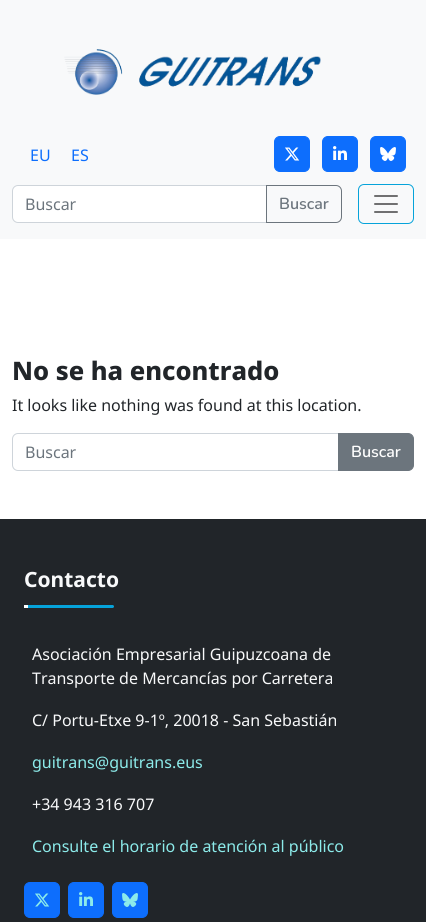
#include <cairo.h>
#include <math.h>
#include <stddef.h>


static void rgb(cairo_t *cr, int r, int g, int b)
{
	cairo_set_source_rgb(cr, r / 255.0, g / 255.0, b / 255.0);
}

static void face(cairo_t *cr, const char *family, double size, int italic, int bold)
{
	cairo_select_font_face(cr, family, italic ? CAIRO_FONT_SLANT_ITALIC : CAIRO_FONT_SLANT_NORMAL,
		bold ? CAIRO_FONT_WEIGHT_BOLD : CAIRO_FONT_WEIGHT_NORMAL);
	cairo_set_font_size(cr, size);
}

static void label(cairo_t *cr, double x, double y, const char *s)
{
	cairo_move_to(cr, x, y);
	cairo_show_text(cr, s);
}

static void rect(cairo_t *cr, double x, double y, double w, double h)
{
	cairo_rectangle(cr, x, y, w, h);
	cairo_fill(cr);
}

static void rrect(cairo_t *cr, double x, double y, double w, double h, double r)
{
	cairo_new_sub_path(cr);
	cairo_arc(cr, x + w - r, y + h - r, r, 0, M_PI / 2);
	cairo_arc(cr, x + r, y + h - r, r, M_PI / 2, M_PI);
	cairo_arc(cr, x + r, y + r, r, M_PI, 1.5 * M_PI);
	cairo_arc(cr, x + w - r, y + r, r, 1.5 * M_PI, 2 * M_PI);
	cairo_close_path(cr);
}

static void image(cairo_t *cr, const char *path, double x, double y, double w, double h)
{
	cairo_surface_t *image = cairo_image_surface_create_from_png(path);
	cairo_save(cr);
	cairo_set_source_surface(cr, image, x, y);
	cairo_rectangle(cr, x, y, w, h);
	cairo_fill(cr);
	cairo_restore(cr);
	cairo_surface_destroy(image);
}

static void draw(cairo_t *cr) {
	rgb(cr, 255, 255, 255);
	cairo_paint(cr);
	rgb(cr, 248, 249, 250);
	rect(cr, 0, 0, 426, 239);
	image(cr, "image0.png", 64, 49, 257, 46);
	face(cr, "Noto Sans", 16, 0, 0);
	rgb(cr, 13, 110, 253);
	label(cr, 30, 161, "EU");
	label(cr, 71, 161, "ES");
	rrect(cr, 274.5, 136.5, 35, 35, 5.5);
	cairo_fill_preserve(cr);
	cairo_set_line_width(cr, 1);
	cairo_stroke(cr);
	image(cr, "image1.png", 285, 147, 15, 14);
	rrect(cr, 322.5, 136.5, 35, 35, 5.5);
	cairo_fill_preserve(cr);
	cairo_stroke(cr);
	image(cr, "image2.png", 333, 146, 14, 14);
	rrect(cr, 370.5, 136.5, 35, 35, 5.5);
	cairo_fill_preserve(cr);
	cairo_stroke(cr);
	image(cr, "image3.png", 380, 147, 16, 14);
	rgb(cr, 255, 255, 255);
	cairo_new_path(cr);
	cairo_move_to(cr, 18, 185.5);
	cairo_line_to(cr, 266.5, 185.5);
	cairo_line_to(cr, 266.5, 222.5);
	cairo_line_to(cr, 18, 222.5);
	cairo_curve_to(cr, 15, 222.5, 12.5, 220, 12.5, 217);
	cairo_line_to(cr, 12.5, 191);
	cairo_curve_to(cr, 12.5, 188, 15, 185.5, 18, 185.5);
	cairo_close_path(cr);
	cairo_fill_preserve(cr);
	rgb(cr, 206, 212, 218);
	cairo_stroke(cr);
	rgb(cr, 108, 117, 125);
	label(cr, 25, 210, "Buscar");
	cairo_new_path(cr);
	cairo_move_to(cr, 266.5, 185.5);
	cairo_line_to(cr, 336, 185.5);
	cairo_curve_to(cr, 339, 185.5, 341.5, 188, 341.5, 191);
	cairo_line_to(cr, 341.5, 217);
	cairo_curve_to(cr, 341.5, 220, 339, 222.5, 336, 222.5);
	cairo_line_to(cr, 266.5, 222.5);
	cairo_close_path(cr);
	cairo_stroke(cr);
	face(cr, "Nunito SemiBold", 16, 0, 0);
	label(cr, 279, 209, "Buscar");
	rrect(cr, 358.5, 184.5, 55, 39, 5.5);
	rgb(cr, 6, 163, 218);
	cairo_stroke(cr);
	image(cr, "image4.png", 374, 195, 24, 18);
	face(cr, "Noto Sans ExtraBold", 25.5, 0, 0);
	rgb(cr, 33, 37, 41);
	label(cr, 12, 380, "No se ha encontrado");
	face(cr, "Noto Sans", 16, 0, 0);
	label(cr, 12, 411, "It looks like nothing was found at this location.");
	cairo_new_path(cr);
	cairo_move_to(cr, 18, 433.5);
	cairo_line_to(cr, 338.5, 433.5);
	cairo_line_to(cr, 338.5, 470.5);
	cairo_line_to(cr, 18, 470.5);
	cairo_curve_to(cr, 15, 470.5, 12.5, 468, 12.5, 465);
	cairo_line_to(cr, 12.5, 439);
	cairo_curve_to(cr, 12.5, 436, 15, 433.5, 18, 433.5);
	cairo_close_path(cr);
	rgb(cr, 206, 212, 218);
	cairo_stroke(cr);
	rgb(cr, 108, 117, 125);
	label(cr, 25, 458, "Buscar");
	cairo_new_path(cr);
	cairo_move_to(cr, 338.5, 433.5);
	cairo_line_to(cr, 408, 433.5);
	cairo_curve_to(cr, 411, 433.5, 413.5, 436, 413.5, 439);
	cairo_line_to(cr, 413.5, 465);
	cairo_curve_to(cr, 413.5, 468, 411, 470.5, 408, 470.5);
	cairo_line_to(cr, 338.5, 470.5);
	cairo_close_path(cr);
	cairo_fill_preserve(cr);
	cairo_stroke(cr);
	face(cr, "Nunito SemiBold", 16, 0, 0);
	rgb(cr, 255, 255, 255);
	label(cr, 351, 457, "Buscar");
	rgb(cr, 33, 37, 41);
	rect(cr, 0, 519, 426, 403);
	face(cr, "Noto Sans", 21, 0, 1);
	rgb(cr, 248, 249, 250);
	label(cr, 24, 587, "Contacto");
	rgb(cr, 6, 163, 218);
	rrect(cr, 24, 605, 90, 3, 1.5);
	cairo_fill(cr);
	rgb(cr, 255, 255, 255);
	rect(cr, 24, 605, 4, 3);
	face(cr, "Noto Sans", 16, 0, 0);
	rgb(cr, 248, 249, 250);
	label(cr, 32, 660, "Asociación Empresarial Guipuzcoana de");
	label(cr, 32, 684, "Transporte de Mercancías por Carretera");
	label(cr, 32, 726, "C/ Portu-Etxe 9-1º, 20018 - San Sebastián");
	rgb(cr, 140, 235, 234);
	label(cr, 32, 768, "guitrans@guitrans.eus");
	rgb(cr, 248, 249, 250);
	label(cr, 32, 810, "+34 943 316 707");
	rgb(cr, 140, 235, 234);
	label(cr, 32, 852, "Consulte el horario de atención al público");
	rgb(cr, 13, 110, 253);
	rrect(cr, 24.5, 882.5, 35, 35, 5.5);
	cairo_fill_preserve(cr);
	cairo_stroke(cr);
	image(cr, "image5.png", 35, 893, 15, 14);
	rrect(cr, 68.5, 882.5, 35, 35, 5.5);
	cairo_fill_preserve(cr);
	cairo_stroke(cr);
	image(cr, "image6.png", 79, 892, 14, 14);
	rrect(cr, 112.5, 882.5, 35, 35, 5.5);
	cairo_fill_preserve(cr);
	cairo_stroke(cr);
	image(cr, "image7.png", 122, 893, 16, 14);
}

int main(void) {
	cairo_surface_t *surface = cairo_image_surface_create(CAIRO_FORMAT_RGB24, 426, 922);
	cairo_t *cr = cairo_create(surface);
	cairo_font_options_t *options = cairo_font_options_create();
	cairo_font_options_set_hint_metrics(options, CAIRO_HINT_METRICS_OFF);
	cairo_font_options_set_hint_style(options, CAIRO_HINT_STYLE_NONE);
	cairo_set_font_options(cr, options);
	cairo_set_miter_limit(cr, 4);
	draw(cr);
	cairo_surface_write_to_png(surface, "render.png");
	cairo_font_options_destroy(options);
	cairo_destroy(cr);
	cairo_surface_destroy(surface);
	return 0;
}
